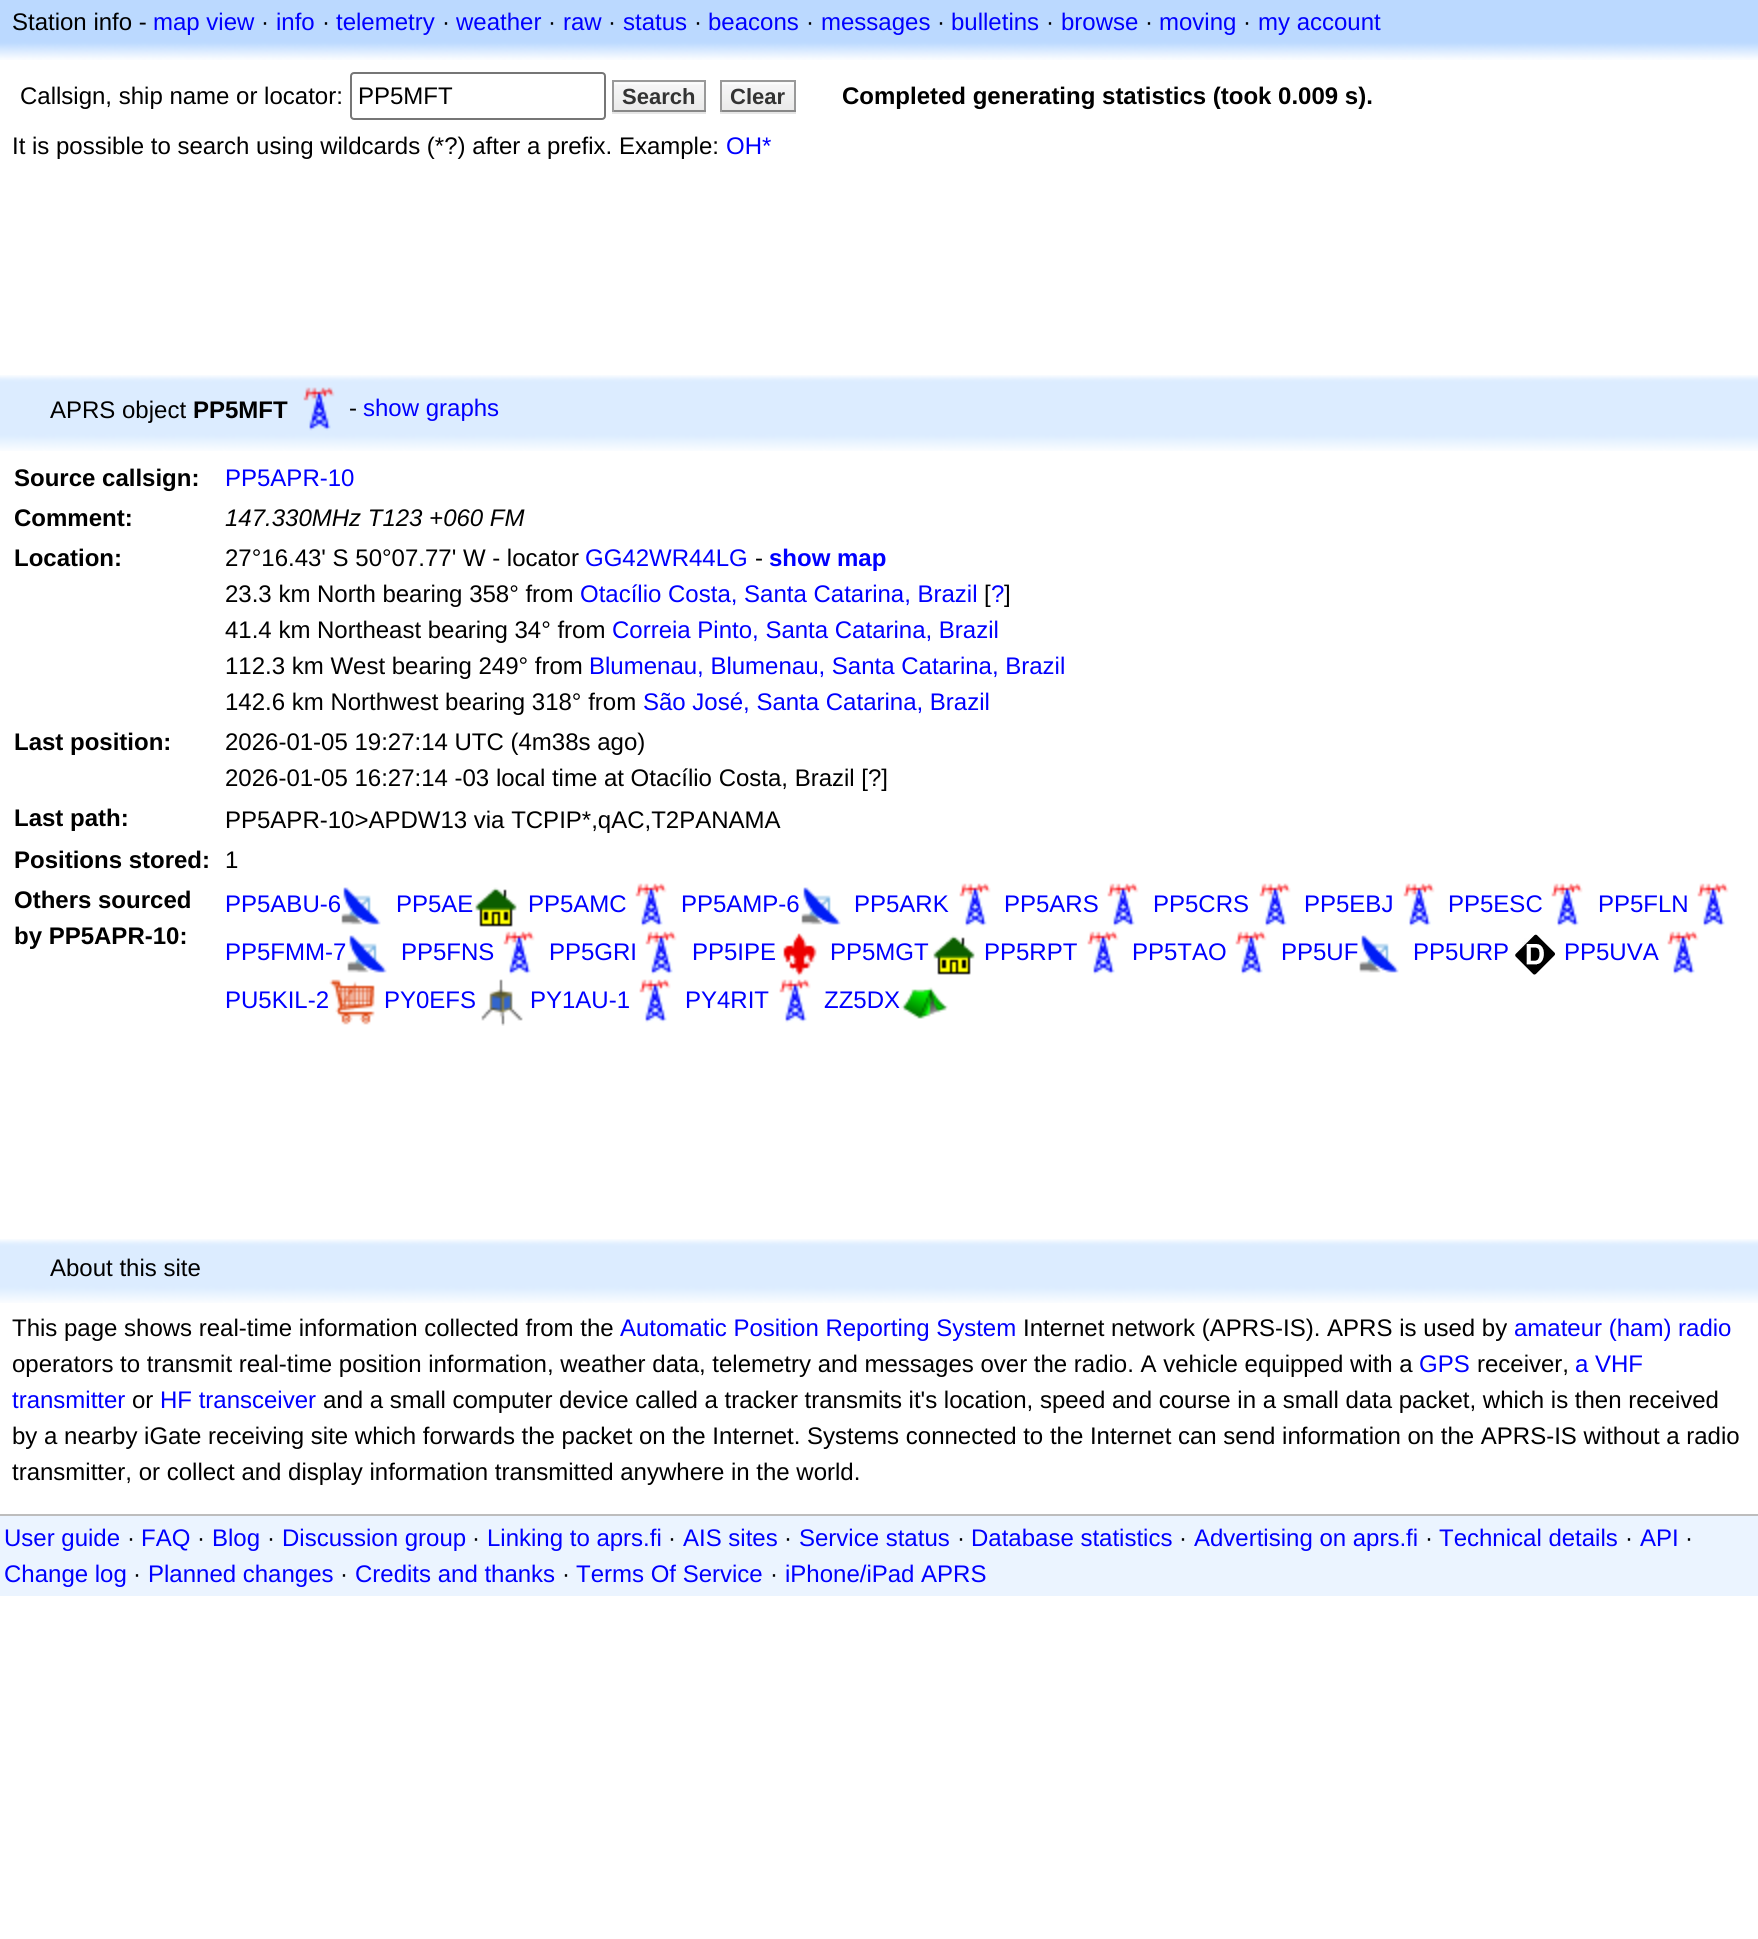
#include <cairo.h>
#include <math.h>
#include <stddef.h>


static void rgb(cairo_t *cr, int r, int g, int b)
{
	cairo_set_source_rgb(cr, r / 255.0, g / 255.0, b / 255.0);
}

static void face(cairo_t *cr, const char *family, double size, int italic, int bold)
{
	cairo_select_font_face(cr, family, italic ? CAIRO_FONT_SLANT_ITALIC : CAIRO_FONT_SLANT_NORMAL,
		bold ? CAIRO_FONT_WEIGHT_BOLD : CAIRO_FONT_WEIGHT_NORMAL);
	cairo_set_font_size(cr, size);
}

static void label(cairo_t *cr, double x, double y, const char *s)
{
	cairo_move_to(cr, x, y);
	cairo_show_text(cr, s);
}

static void rect(cairo_t *cr, double x, double y, double w, double h)
{
	cairo_rectangle(cr, x, y, w, h);
	cairo_fill(cr);
}

static void rrect(cairo_t *cr, double x, double y, double w, double h, double r)
{
	cairo_new_sub_path(cr);
	cairo_arc(cr, x + w - r, y + h - r, r, 0, M_PI / 2);
	cairo_arc(cr, x + r, y + h - r, r, M_PI / 2, M_PI);
	cairo_arc(cr, x + r, y + r, r, M_PI, 1.5 * M_PI);
	cairo_arc(cr, x + w - r, y + r, r, 1.5 * M_PI, 2 * M_PI);
	cairo_close_path(cr);
}

static void image(cairo_t *cr, const char *path, double x, double y, double w, double h)
{
	cairo_surface_t *image = cairo_image_surface_create_from_png(path);
	cairo_save(cr);
	cairo_set_source_surface(cr, image, x, y);
	cairo_rectangle(cr, x, y, w, h);
	cairo_fill(cr);
	cairo_restore(cr);
	cairo_surface_destroy(image);
}

static void draw(cairo_t *cr) {
	rgb(cr, 255, 255, 255);
	cairo_paint(cr);
	rgb(cr, 187, 217, 255);
	rect(cr, 0, 0, 1758, 40);
	face(cr, "Liberation Sans", 24, 0, 0);
	rgb(cr, 0, 0, 0);
	label(cr, 12, 30, "Station info -");
	rgb(cr, 0, 0, 255);
	label(cr, 153, 30, "map view");
	rgb(cr, 0, 0, 0);
	label(cr, 261, 30, "·");
	rgb(cr, 0, 0, 255);
	label(cr, 276, 30, "info");
	rgb(cr, 0, 0, 0);
	label(cr, 322, 30, "·");
	rgb(cr, 0, 0, 255);
	label(cr, 336, 30, "telemetry");
	rgb(cr, 0, 0, 0);
	label(cr, 442, 30, "·");
	rgb(cr, 0, 0, 255);
	label(cr, 456, 30, "weather");
	rgb(cr, 0, 0, 0);
	label(cr, 548, 30, "·");
	rgb(cr, 0, 0, 255);
	label(cr, 563, 30, "raw");
	rgb(cr, 0, 0, 0);
	label(cr, 608, 30, "·");
	rgb(cr, 0, 0, 255);
	label(cr, 623, 30, "status");
	rgb(cr, 0, 0, 0);
	label(cr, 694, 30, "·");
	rgb(cr, 0, 0, 255);
	label(cr, 708, 30, "beacons");
	rgb(cr, 0, 0, 0);
	label(cr, 806, 30, "·");
	rgb(cr, 0, 0, 255);
	label(cr, 821, 30, "messages");
	rgb(cr, 0, 0, 0);
	label(cr, 937, 30, "·");
	rgb(cr, 0, 0, 255);
	label(cr, 951, 30, "bulletins");
	rgb(cr, 0, 0, 0);
	label(cr, 1046, 30, "·");
	rgb(cr, 0, 0, 255);
	label(cr, 1061, 30, "browse");
	rgb(cr, 0, 0, 0);
	label(cr, 1145, 30, "·");
	rgb(cr, 0, 0, 255);
	label(cr, 1159, 30, "moving");
	rgb(cr, 0, 0, 0);
	label(cr, 1243, 30, "·");
	rgb(cr, 0, 0, 255);
	label(cr, 1258, 30, "my account");
	image(cr, "image0.png", 0, 40, 1758, 20);
	rgb(cr, 0, 0, 0);
	label(cr, 20, 104, "Callsign, ship name or locator:");
	rrect(cr, 351, 73, 254, 46, 3);
	rgb(cr, 118, 118, 118);
	cairo_stroke(cr);
	rgb(cr, 0, 0, 0);
	label(cr, 358, 104, "PP5MFT");
	rgb(cr, 230, 230, 230);
	rect(cr, 612, 112, 94, 2);
	rgb(cr, 238, 238, 238);
	rect(cr, 614, 82, 90, 1);
	image(cr, "image1.png", 614, 82, 90, 28);
	rgb(cr, 153, 153, 153);
	rect(cr, 612, 80, 94, 2);
	rect(cr, 704, 80, 2, 32);
	rgb(cr, 136, 136, 136);
	rect(cr, 612, 110, 94, 2);
	rgb(cr, 153, 153, 153);
	rect(cr, 612, 80, 2, 32);
	face(cr, "Liberation Sans", 22, 0, 1);
	rgb(cr, 51, 51, 51);
	label(cr, 622, 104, "Search");
	rgb(cr, 230, 230, 230);
	rect(cr, 720, 112, 76, 2);
	rgb(cr, 238, 238, 238);
	rect(cr, 722, 82, 72, 1);
	image(cr, "image2.png", 722, 82, 72, 28);
	rgb(cr, 153, 153, 153);
	rect(cr, 720, 80, 76, 2);
	rect(cr, 794, 80, 2, 32);
	rgb(cr, 136, 136, 136);
	rect(cr, 720, 110, 76, 2);
	rgb(cr, 153, 153, 153);
	rect(cr, 720, 80, 2, 32);
	rgb(cr, 51, 51, 51);
	label(cr, 730, 104, "Clear");
	face(cr, "Liberation Sans", 24, 0, 1);
	rgb(cr, 0, 0, 0);
	label(cr, 842, 104, "Completed generating statistics (took 0.009 s).");
	face(cr, "Liberation Sans", 24, 0, 0);
	label(cr, 12, 154, "It is possible to search using wildcards (*?) after a prefix. Example:");
	rgb(cr, 0, 0, 255);
	label(cr, 726, 154, "OH*");
	image(cr, "image3.png", 0, 375, 1758, 7);
	rgb(cr, 220, 236, 255);
	rect(cr, 0, 382, 1758, 52);
	rgb(cr, 0, 0, 0);
	label(cr, 50, 418, "APRS object");
	face(cr, "Liberation Sans", 24, 0, 1);
	label(cr, 193, 418, "PP5MFT");
	image(cr, "image4.png", 303, 387, 32, 44);
	face(cr, "Liberation Sans", 24, 0, 0);
	label(cr, 349, 416, "-");
	rgb(cr, 0, 0, 255);
	label(cr, 363, 416, "show graphs");
	image(cr, "image5.png", 0, 434, 1758, 17);
	face(cr, "Liberation Sans", 24, 0, 1);
	rgb(cr, 0, 0, 0);
	label(cr, 14, 486, "Source callsign:");
	face(cr, "Liberation Sans", 24, 0, 0);
	rgb(cr, 0, 0, 255);
	label(cr, 225, 486, "PP5APR-10");
	face(cr, "Liberation Sans", 24, 0, 1);
	rgb(cr, 0, 0, 0);
	label(cr, 14, 526, "Comment:");
	face(cr, "Liberation Sans", 24, 1, 0);
	label(cr, 225, 526, "147.330MHz T123 +060 FM");
	face(cr, "Liberation Sans", 24, 0, 1);
	label(cr, 14, 566, "Location:");
	face(cr, "Liberation Sans", 24, 0, 0);
	label(cr, 225, 566, "27°16.43' S 50°07.77' W - locator");
	rgb(cr, 0, 0, 255);
	label(cr, 585, 566, "GG42WR44LG");
	rgb(cr, 0, 0, 0);
	label(cr, 755, 566, "-");
	face(cr, "Liberation Sans", 24, 0, 1);
	rgb(cr, 0, 0, 255);
	label(cr, 769, 566, "show map");
	face(cr, "Liberation Sans", 24, 0, 0);
	rgb(cr, 0, 0, 0);
	label(cr, 225, 602, "23.3 km North bearing 358° from");
	rgb(cr, 0, 0, 255);
	label(cr, 580, 602, "Otacílio Costa, Santa Catarina, Brazil");
	rgb(cr, 0, 0, 0);
	label(cr, 984, 602, "[");
	rgb(cr, 0, 0, 255);
	label(cr, 991, 602, "?");
	rgb(cr, 0, 0, 0);
	label(cr, 1004, 602, "]");
	label(cr, 225, 638, "41.4 km Northeast bearing 34° from");
	rgb(cr, 0, 0, 255);
	label(cr, 612, 638, "Correia Pinto, Santa Catarina, Brazil");
	rgb(cr, 0, 0, 0);
	label(cr, 225, 674, "112.3 km West bearing 249° from");
	rgb(cr, 0, 0, 255);
	label(cr, 589, 674, "Blumenau, Blumenau, Santa Catarina, Brazil");
	rgb(cr, 0, 0, 0);
	label(cr, 225, 710, "142.6 km Northwest bearing 318° from");
	rgb(cr, 0, 0, 255);
	label(cr, 643, 710, "São José, Santa Catarina, Brazil");
	face(cr, "Liberation Sans", 24, 0, 1);
	rgb(cr, 0, 0, 0);
	label(cr, 14, 750, "Last position:");
	face(cr, "Liberation Sans", 24, 0, 0);
	label(cr, 225, 750, "2026-01-05 19:27:14 UTC (4m38s ago)");
	label(cr, 225, 786, "2026-01-05 16:27:14 -03 local time at Otacílio Costa, Brazil [?]");
	face(cr, "Liberation Sans", 24, 0, 1);
	label(cr, 14, 826, "Last path:");
	face(cr, "Liberation Sans", 24, 0, 0);
	label(cr, 225, 828, "PP5APR-10>APDW13 via TCPIP*,qAC,T2PANAMA");
	face(cr, "Liberation Sans", 24, 0, 1);
	label(cr, 14, 868, "Positions stored:");
	face(cr, "Liberation Sans", 24, 0, 0);
	label(cr, 225, 868, "1");
	face(cr, "Liberation Sans", 24, 0, 1);
	label(cr, 14, 908, "Others sourced");
	label(cr, 14, 944, "by PP5APR-10:");
	face(cr, "Liberation Sans", 24, 0, 0);
	rgb(cr, 0, 0, 255);
	label(cr, 225, 912, "PP5ABU-6");
	image(cr, "image6.png", 341, 887, 40, 38);
	label(cr, 396, 912, "PP5AE");
	image(cr, "image7.png", 475, 887, 42, 40);
	label(cr, 528, 912, "PP5AMC");
	image(cr, "image8.png", 635, 883, 32, 44);
	label(cr, 681, 912, "PP5AMP-6");
	image(cr, "image6.png", 801, 887, 40, 38);
	label(cr, 854, 912, "PP5ARK");
	image(cr, "image8.png", 959, 883, 32, 44);
	label(cr, 1004, 912, "PP5ARS");
	image(cr, "image8.png", 1107, 883, 32, 44);
	label(cr, 1153, 912, "PP5CRS");
	image(cr, "image8.png", 1259, 883, 32, 44);
	label(cr, 1304, 912, "PP5EBJ");
	image(cr, "image8.png", 1403, 883, 32, 44);
	label(cr, 1448, 912, "PP5ESC");
	image(cr, "image8.png", 1551, 883, 32, 44);
	label(cr, 1598, 912, "PP5FLN");
	image(cr, "image8.png", 1697, 883, 32, 44);
	label(cr, 225, 960, "PP5FMM-7");
	image(cr, "image6.png", 347, 935, 40, 38);
	label(cr, 401, 960, "PP5FNS");
	image(cr, "image8.png", 503, 931, 32, 44);
	label(cr, 549, 960, "PP5GRI");
	image(cr, "image8.png", 645, 931, 32, 44);
	label(cr, 692, 960, "PP5IPE");
	image(cr, "image9.png", 783, 933, 34, 44);
	label(cr, 830, 960, "PP5MGT");
	image(cr, "image7.png", 933, 935, 42, 40);
	label(cr, 984, 960, "PP5RPT");
	image(cr, "image8.png", 1087, 931, 32, 44);
	label(cr, 1132, 960, "PP5TAO");
	image(cr, "image8.png", 1235, 931, 32, 44);
	label(cr, 1281, 960, "PP5UF");
	image(cr, "image6.png", 1359, 935, 40, 38);
	label(cr, 1413, 960, "PP5URP");
	image(cr, "image10.png", 1515, 934, 40, 41);
	label(cr, 1564, 960, "PP5UVA");
	image(cr, "image8.png", 1667, 931, 32, 44);
	label(cr, 225, 1008, "PU5KIL-2");
	image(cr, "image11.png", 329, 979, 46, 46);
	label(cr, 384, 1008, "PY0EFS");
	image(cr, "image12.png", 481, 979, 42, 47);
	label(cr, 530, 1008, "PY1AU-1");
	image(cr, "image8.png", 639, 979, 32, 44);
	label(cr, 685, 1008, "PY4RIT");
	image(cr, "image8.png", 779, 979, 32, 44);
	label(cr, 824, 1008, "ZZ5DX");
	image(cr, "image13.png", 901, 987, 47, 32);
	image(cr, "image3.png", 0, 1239, 1758, 7);
	rgb(cr, 220, 236, 255);
	rect(cr, 0, 1246, 1758, 40);
	rgb(cr, 0, 0, 0);
	label(cr, 50, 1276, "About this site");
	image(cr, "image5.png", 0, 1286, 1758, 17);
	label(cr, 12, 1336, "This page shows real-time information collected from the");
	rgb(cr, 0, 0, 255);
	label(cr, 620, 1336, "Automatic Position Reporting System");
	rgb(cr, 0, 0, 0);
	label(cr, 1023, 1336, "Internet network (APRS-IS). APRS is used by");
	rgb(cr, 0, 0, 255);
	label(cr, 1514, 1336, "amateur (ham) radio");
	rgb(cr, 0, 0, 0);
	label(cr, 12, 1372, "operators to transmit real-time position information, weather data, telemetry and messages over the radio. A vehicle equipped with a");
	rgb(cr, 0, 0, 255);
	label(cr, 1419, 1372, "GPS");
	rgb(cr, 0, 0, 0);
	label(cr, 1477, 1372, "receiver,");
	rgb(cr, 0, 0, 255);
	label(cr, 1575, 1372, "a VHF");
	label(cr, 12, 1408, "transmitter");
	rgb(cr, 0, 0, 0);
	label(cr, 132, 1408, "or");
	rgb(cr, 0, 0, 255);
	label(cr, 160, 1408, "HF transceiver");
	rgb(cr, 0, 0, 0);
	label(cr, 323, 1408, "and a small computer device called a tracker transmits it's location, speed and course in a small data packet, which is then received");
	label(cr, 12, 1444, "by a nearby iGate receiving site which forwards the packet on the Internet. Systems connected to the Internet can send information on the APRS-IS without a radio");
	label(cr, 12, 1480, "transmitter, or collect and display information transmitted anywhere in the world.");
	rgb(cr, 235, 244, 255);
	rect(cr, 0, 1516, 1758, 80);
	rgb(cr, 189, 189, 189);
	rect(cr, 0, 1514, 1758, 2);
	rgb(cr, 0, 0, 255);
	label(cr, 4, 1546, "User guide");
	rgb(cr, 0, 0, 0);
	label(cr, 127, 1546, "·");
	rgb(cr, 0, 0, 255);
	label(cr, 141, 1546, "FAQ");
	rgb(cr, 0, 0, 0);
	label(cr, 197, 1546, "·");
	rgb(cr, 0, 0, 255);
	label(cr, 212, 1546, "Blog");
	rgb(cr, 0, 0, 0);
	label(cr, 267, 1546, "·");
	rgb(cr, 0, 0, 255);
	label(cr, 282, 1546, "Discussion group");
	rgb(cr, 0, 0, 0);
	label(cr, 472, 1546, "·");
	rgb(cr, 0, 0, 255);
	label(cr, 487, 1546, "Linking to aprs.fi");
	rgb(cr, 0, 0, 0);
	label(cr, 668, 1546, "·");
	rgb(cr, 0, 0, 255);
	label(cr, 683, 1546, "AIS sites");
	rgb(cr, 0, 0, 0);
	label(cr, 784, 1546, "·");
	rgb(cr, 0, 0, 255);
	label(cr, 799, 1546, "Service status");
	rgb(cr, 0, 0, 0);
	label(cr, 957, 1546, "·");
	rgb(cr, 0, 0, 255);
	label(cr, 971, 1546, "Database statistics");
	rgb(cr, 0, 0, 0);
	label(cr, 1179, 1546, "·");
	rgb(cr, 0, 0, 255);
	label(cr, 1194, 1546, "Advertising on aprs.fi");
	rgb(cr, 0, 0, 0);
	label(cr, 1425, 1546, "·");
	rgb(cr, 0, 0, 255);
	label(cr, 1439, 1546, "Technical details");
	rgb(cr, 0, 0, 0);
	label(cr, 1625, 1546, "·");
	rgb(cr, 0, 0, 255);
	label(cr, 1640, 1546, "API");
	rgb(cr, 0, 0, 0);
	label(cr, 1685, 1546, "·");
	rgb(cr, 0, 0, 255);
	label(cr, 4, 1582, "Change log");
	rgb(cr, 0, 0, 0);
	label(cr, 133, 1582, "·");
	rgb(cr, 0, 0, 255);
	label(cr, 148, 1582, "Planned changes");
	rgb(cr, 0, 0, 0);
	label(cr, 340, 1582, "·");
	rgb(cr, 0, 0, 255);
	label(cr, 355, 1582, "Credits and thanks");
	rgb(cr, 0, 0, 0);
	label(cr, 562, 1582, "·");
	rgb(cr, 0, 0, 255);
	label(cr, 576, 1582, "Terms Of Service");
	rgb(cr, 0, 0, 0);
	label(cr, 770, 1582, "·");
	rgb(cr, 0, 0, 255);
	label(cr, 785, 1582, "iPhone/iPad APRS");
}

int main(void) {
	cairo_surface_t *surface = cairo_image_surface_create(CAIRO_FORMAT_RGB24, 1758, 1939);
	cairo_t *cr = cairo_create(surface);
	cairo_font_options_t *options = cairo_font_options_create();
	cairo_font_options_set_hint_metrics(options, CAIRO_HINT_METRICS_OFF);
	cairo_font_options_set_hint_style(options, CAIRO_HINT_STYLE_NONE);
	cairo_set_font_options(cr, options);
	cairo_set_miter_limit(cr, 4);
	draw(cr);
	cairo_surface_write_to_png(surface, "render.png");
	cairo_font_options_destroy(options);
	cairo_destroy(cr);
	cairo_surface_destroy(surface);
	return 0;
}
